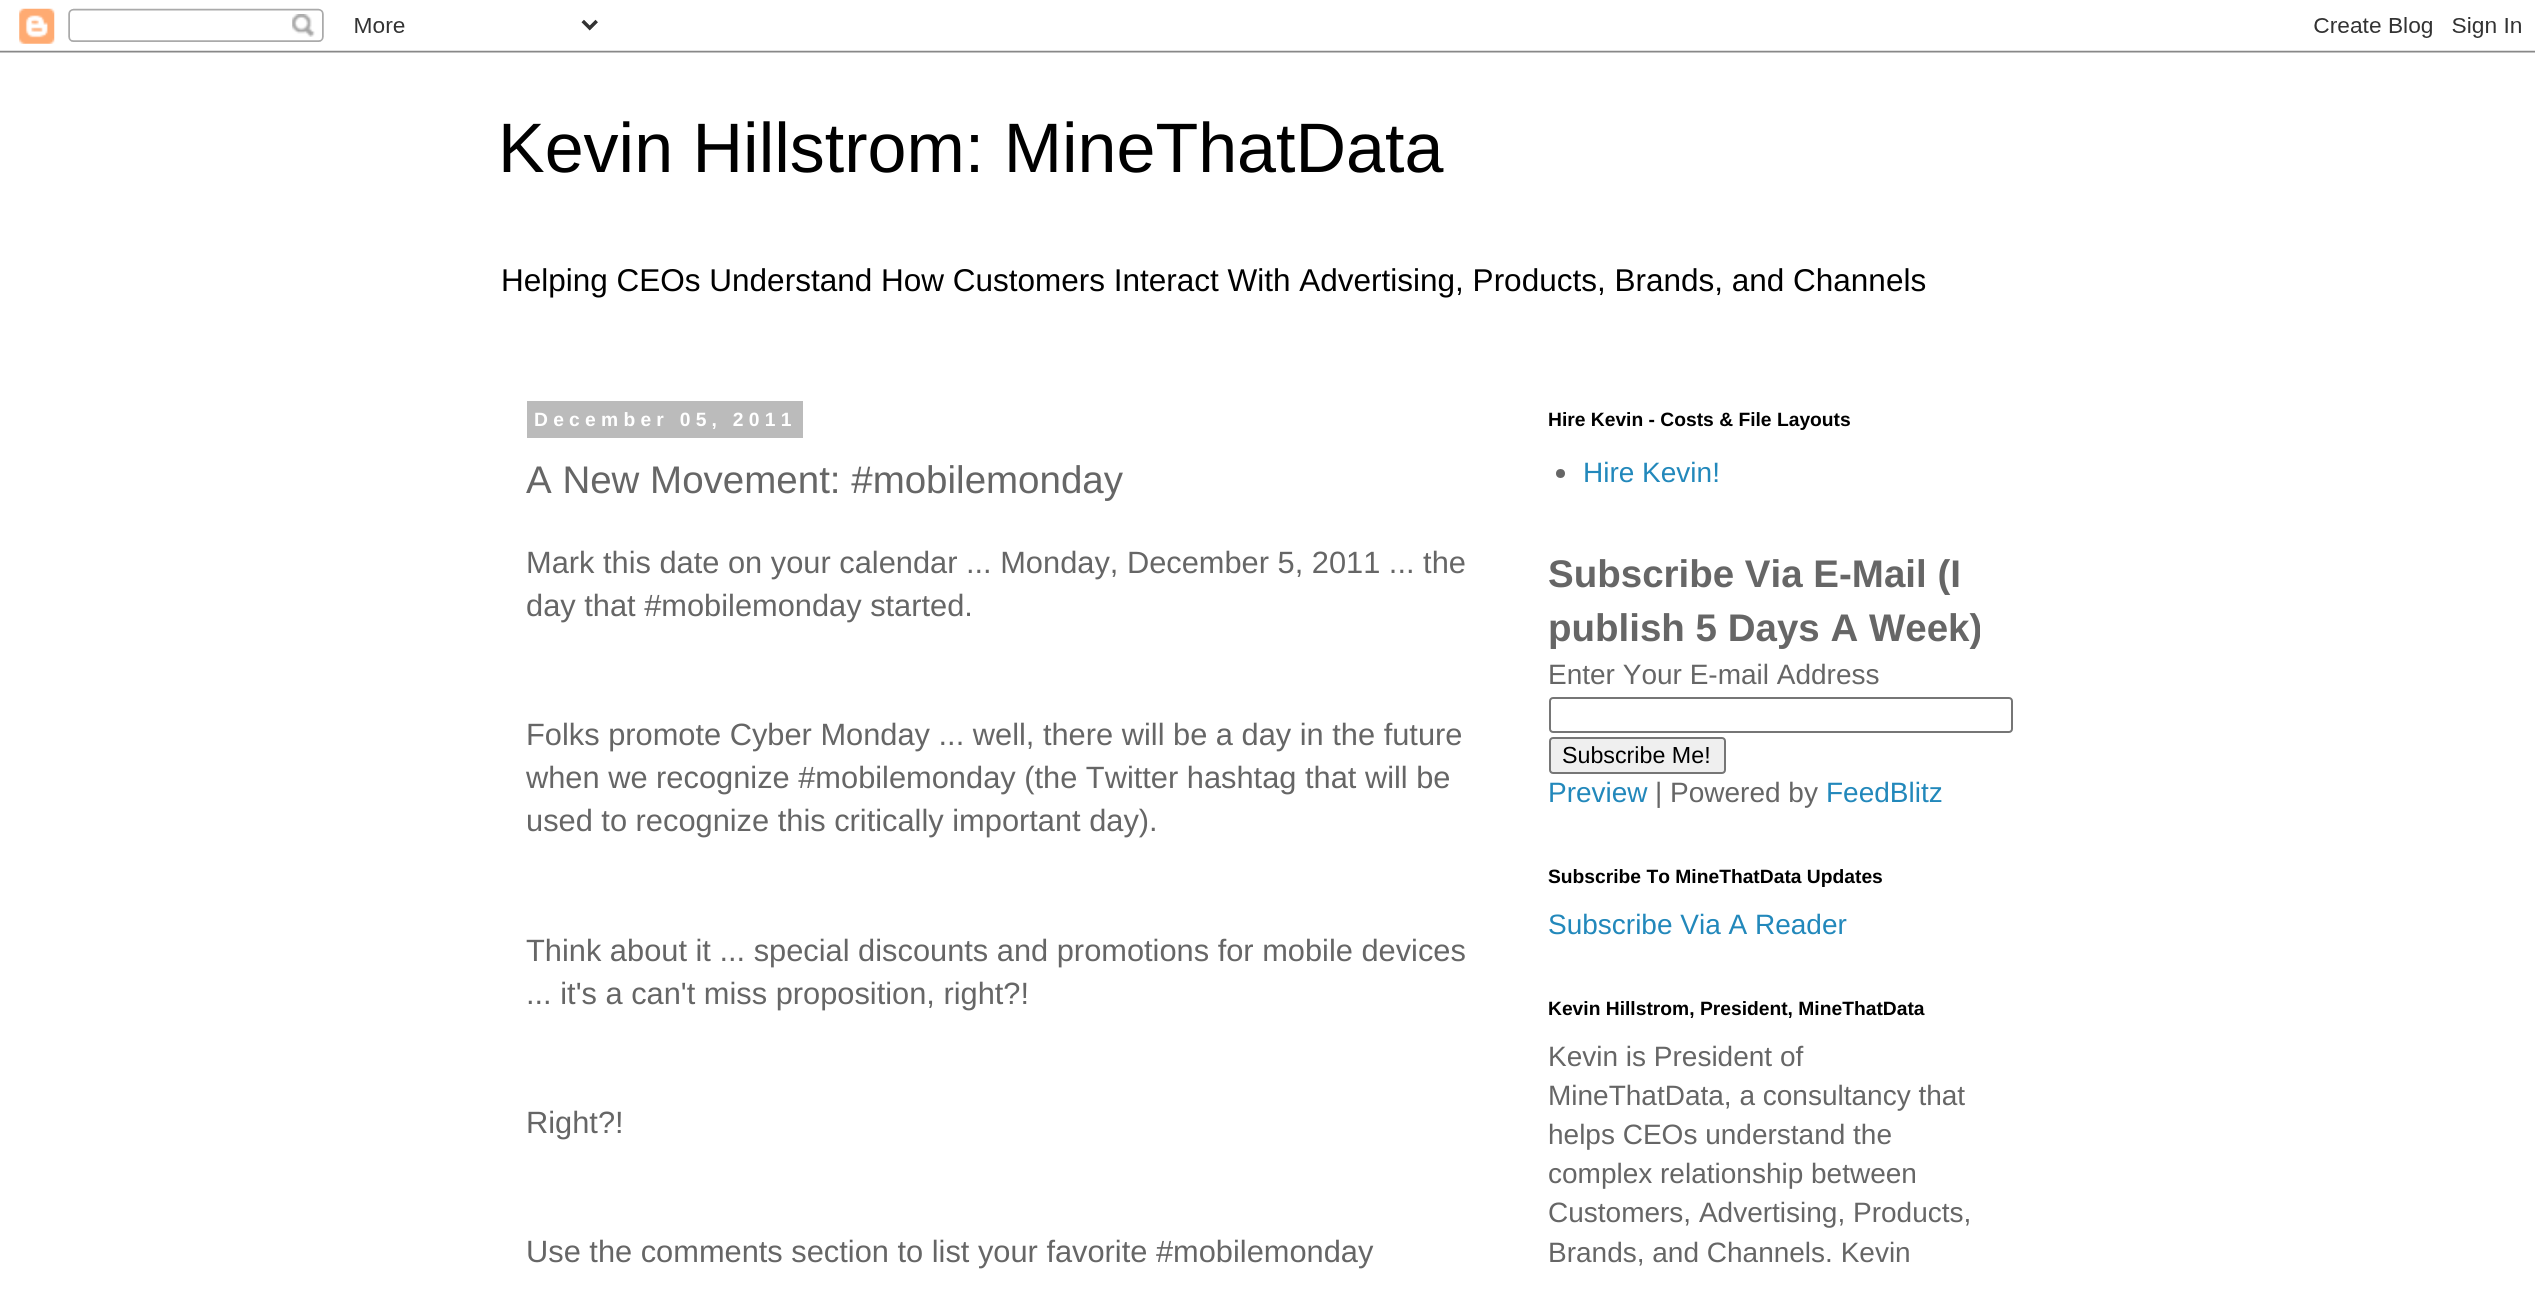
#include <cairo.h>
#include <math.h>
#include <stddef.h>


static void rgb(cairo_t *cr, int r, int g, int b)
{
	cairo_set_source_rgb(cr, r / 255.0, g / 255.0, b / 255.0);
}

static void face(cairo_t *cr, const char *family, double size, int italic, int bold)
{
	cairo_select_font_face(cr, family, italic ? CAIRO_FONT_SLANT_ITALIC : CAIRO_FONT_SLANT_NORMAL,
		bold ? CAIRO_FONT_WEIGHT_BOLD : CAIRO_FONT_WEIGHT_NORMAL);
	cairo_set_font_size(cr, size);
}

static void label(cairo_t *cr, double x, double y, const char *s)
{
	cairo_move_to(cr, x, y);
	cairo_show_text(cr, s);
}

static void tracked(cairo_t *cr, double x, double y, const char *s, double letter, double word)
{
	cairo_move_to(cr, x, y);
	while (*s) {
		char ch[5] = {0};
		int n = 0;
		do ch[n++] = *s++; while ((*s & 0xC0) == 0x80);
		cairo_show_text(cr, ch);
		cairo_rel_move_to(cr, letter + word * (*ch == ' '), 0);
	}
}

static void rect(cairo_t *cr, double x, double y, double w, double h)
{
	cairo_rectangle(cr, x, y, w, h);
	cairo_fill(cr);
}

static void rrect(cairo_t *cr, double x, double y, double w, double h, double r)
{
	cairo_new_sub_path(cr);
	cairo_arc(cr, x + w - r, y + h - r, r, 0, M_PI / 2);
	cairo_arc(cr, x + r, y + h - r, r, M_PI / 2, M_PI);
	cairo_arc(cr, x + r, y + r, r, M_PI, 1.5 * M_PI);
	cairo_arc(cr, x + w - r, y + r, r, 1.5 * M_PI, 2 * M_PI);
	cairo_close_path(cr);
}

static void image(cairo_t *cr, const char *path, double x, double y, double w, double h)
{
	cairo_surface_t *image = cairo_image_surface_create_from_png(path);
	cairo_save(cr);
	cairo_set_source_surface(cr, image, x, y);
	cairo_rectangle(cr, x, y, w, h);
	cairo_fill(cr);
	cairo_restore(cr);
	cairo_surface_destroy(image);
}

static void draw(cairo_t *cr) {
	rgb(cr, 255, 255, 255);
	cairo_paint(cr);
	image(cr, "image0.png", 0, 8, 2535, 45);
	face(cr, "Liberation Sans", 70, 0, 0);
	rgb(cr, 0, 0, 0);
	label(cr, 498, 172, "Kevin Hillstrom: MineThatData");
	face(cr, "Liberation Sans", 31.5, 0, 0);
	label(cr, 501, 291, "Helping CEOs Understand How Customers Interact With Advertising, Products, Brands, and Channels");
	rgb(cr, 187, 187, 187);
	rect(cr, 527, 401, 276, 37);
	face(cr, "Liberation Sans", 19.25, 0, 1);
	rgb(cr, 255, 255, 255);
	tracked(cr, 534, 426, "December 05, 2011", 5.25, 0);
	face(cr, "Liberation Sans", 38.5, 0, 0);
	rgb(cr, 102, 102, 102);
	label(cr, 526, 493, "A New Movement: #mobilemonday");
	face(cr, "Liberation Sans", 30.8, 0, 0);
	label(cr, 526, 573, "Mark this date on your calendar ... Monday, December 5, 2011 ... the");
	label(cr, 526, 616, "day that #mobilemonday started.");
	label(cr, 526, 745, "Folks promote Cyber Monday ... well, there will be a day in the future");
	label(cr, 526, 788, "when we recognize #mobilemonday (the Twitter hashtag that will be");
	label(cr, 526, 831, "used to recognize this critically important day).");
	label(cr, 526, 961, "Think about it ... special discounts and promotions for mobile devices");
	label(cr, 526, 1004, "... it's a can't miss proposition, right?!");
	label(cr, 526, 1133, "Right?!");
	label(cr, 526, 1262, "Use the comments section to list your favorite #mobilemonday");
	face(cr, "Liberation Sans", 19.25, 0, 1);
	rgb(cr, 0, 0, 0);
	label(cr, 1548, 426, "Hire Kevin - Costs & File Layouts");
	rgb(cr, 102, 102, 102);
	cairo_new_path(cr);
	cairo_arc(cr, 1560.5, 473.5, 4.5, 0, 2 * M_PI);
	cairo_fill(cr);
	face(cr, "Liberation Sans", 28, 0, 0);
	rgb(cr, 34, 136, 187);
	label(cr, 1583, 482, "Hire Kevin!");
	face(cr, "Liberation Sans", 38.5, 0, 1);
	rgb(cr, 102, 102, 102);
	label(cr, 1548, 587, "Subscribe Via E-Mail (I");
	label(cr, 1548, 641, "publish 5 Days A Week)");
	face(cr, "Liberation Sans", 28, 0, 0);
	label(cr, 1548, 684, "Enter Your E-mail Address");
	rrect(cr, 1550, 698, 462, 34, 3);
	rgb(cr, 118, 118, 118);
	cairo_stroke(cr);
	rgb(cr, 239, 239, 239);
	rrect(cr, 1550, 738, 175, 35, 3);
	cairo_fill_preserve(cr);
	rgb(cr, 118, 118, 118);
	cairo_stroke(cr);
	face(cr, "Liberation Sans", 23.25, 0, 0);
	rgb(cr, 0, 0, 0);
	label(cr, 1562, 763, "Subscribe Me!");
	face(cr, "Liberation Sans", 28, 0, 0);
	rgb(cr, 34, 136, 187);
	label(cr, 1548, 802, "Preview");
	rgb(cr, 102, 102, 102);
	label(cr, 1655, 802, "| Powered by");
	rgb(cr, 34, 136, 187);
	label(cr, 1826, 802, "FeedBlitz");
	face(cr, "Liberation Sans", 19.25, 0, 1);
	rgb(cr, 0, 0, 0);
	label(cr, 1548, 883, "Subscribe To MineThatData Updates");
	face(cr, "Liberation Sans", 28, 0, 0);
	rgb(cr, 34, 136, 187);
	label(cr, 1548, 934, "Subscribe Via A Reader");
	face(cr, "Liberation Sans", 19.25, 0, 1);
	rgb(cr, 0, 0, 0);
	label(cr, 1548, 1015, "Kevin Hillstrom, President, MineThatData");
	face(cr, "Liberation Sans", 28, 0, 0);
	rgb(cr, 102, 102, 102);
	label(cr, 1548, 1066, "Kevin is President of");
	label(cr, 1548, 1105, "MineThatData, a consultancy that");
	label(cr, 1548, 1144, "helps CEOs understand the");
	label(cr, 1548, 1183, "complex relationship between");
	label(cr, 1548, 1222, "Customers, Advertising, Products,");
	label(cr, 1548, 1262, "Brands, and Channels. Kevin");
}

int main(void) {
	cairo_surface_t *surface = cairo_image_surface_create(CAIRO_FORMAT_RGB24, 2535, 1295);
	cairo_t *cr = cairo_create(surface);
	cairo_font_options_t *options = cairo_font_options_create();
	cairo_font_options_set_hint_metrics(options, CAIRO_HINT_METRICS_OFF);
	cairo_font_options_set_hint_style(options, CAIRO_HINT_STYLE_NONE);
	cairo_set_font_options(cr, options);
	cairo_set_miter_limit(cr, 4);
	draw(cr);
	cairo_surface_write_to_png(surface, "render.png");
	cairo_font_options_destroy(options);
	cairo_destroy(cr);
	cairo_surface_destroy(surface);
	return 0;
}
